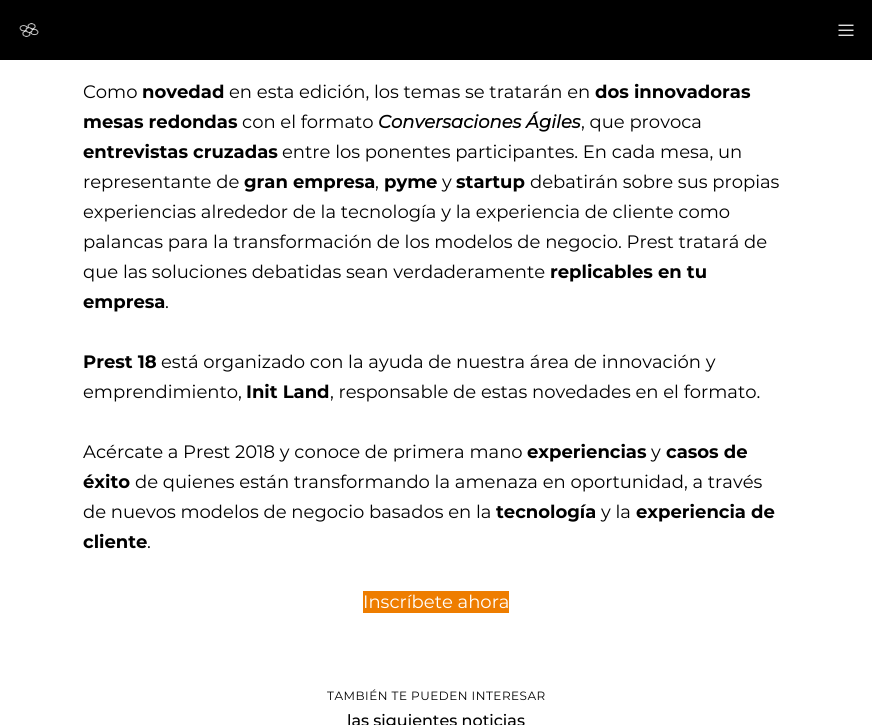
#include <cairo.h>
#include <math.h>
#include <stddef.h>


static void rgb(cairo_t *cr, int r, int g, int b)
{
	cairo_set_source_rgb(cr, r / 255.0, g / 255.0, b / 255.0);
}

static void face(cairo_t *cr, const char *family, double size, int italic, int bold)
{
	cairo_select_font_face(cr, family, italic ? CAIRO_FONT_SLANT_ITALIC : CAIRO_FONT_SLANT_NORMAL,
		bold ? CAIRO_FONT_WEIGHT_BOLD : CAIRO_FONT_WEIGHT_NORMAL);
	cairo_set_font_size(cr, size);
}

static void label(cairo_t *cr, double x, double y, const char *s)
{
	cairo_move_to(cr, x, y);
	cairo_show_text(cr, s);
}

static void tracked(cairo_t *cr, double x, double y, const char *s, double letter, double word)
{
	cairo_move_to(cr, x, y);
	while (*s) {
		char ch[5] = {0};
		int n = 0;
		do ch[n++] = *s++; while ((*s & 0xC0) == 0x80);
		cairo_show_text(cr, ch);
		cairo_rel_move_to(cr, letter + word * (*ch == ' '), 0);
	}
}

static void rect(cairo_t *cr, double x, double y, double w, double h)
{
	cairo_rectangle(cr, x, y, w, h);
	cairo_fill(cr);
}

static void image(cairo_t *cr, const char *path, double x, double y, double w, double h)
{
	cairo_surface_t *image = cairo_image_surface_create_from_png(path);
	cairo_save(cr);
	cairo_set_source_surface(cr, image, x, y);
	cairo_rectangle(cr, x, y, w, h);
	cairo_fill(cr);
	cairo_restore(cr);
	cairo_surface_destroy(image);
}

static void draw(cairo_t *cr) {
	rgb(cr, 255, 255, 255);
	cairo_paint(cr);
	rgb(cr, 0, 0, 0);
	rect(cr, 0, 0, 872, 60);
	image(cr, "image0.png", 19, 23, 20, 14);
	image(cr, "image1.png", 838, 24, 16, 12);
	face(cr, "Montserrat", 18, 0, 0);
	label(cr, 83, 98, "Como");
	face(cr, "Montserrat", 18, 0, 1);
	label(cr, 142, 98, "novedad");
	face(cr, "Montserrat", 18, 0, 0);
	label(cr, 229, 98, "en esta edición, los temas se tratarán en");
	face(cr, "Montserrat", 18, 0, 1);
	label(cr, 595, 98, "dos innovadoras");
	label(cr, 83, 128, "mesas redondas");
	face(cr, "Montserrat", 18, 0, 0);
	label(cr, 242, 128, "con el formato");
	face(cr, "Montserrat", 18, 1, 1);
	label(cr, 378, 128, "Conversaciones Ágiles");
	face(cr, "Montserrat", 18, 0, 0);
	label(cr, 581, 128, ", que provoca");
	face(cr, "Montserrat", 18, 0, 1);
	label(cr, 83, 158, "entrevistas cruzadas");
	face(cr, "Montserrat", 18, 0, 0);
	label(cr, 282, 158, "entre los ponentes participantes. En cada mesa, un");
	label(cr, 83, 188, "representante de");
	face(cr, "Montserrat", 18, 0, 1);
	label(cr, 244, 188, "gran empresa");
	face(cr, "Montserrat", 18, 0, 0);
	label(cr, 375, 188, ",");
	face(cr, "Montserrat", 18, 0, 1);
	label(cr, 384, 188, "pyme");
	face(cr, "Montserrat", 18, 0, 0);
	label(cr, 442, 188, "y");
	face(cr, "Montserrat", 18, 0, 1);
	label(cr, 456, 188, "startup");
	face(cr, "Montserrat", 18, 0, 0);
	label(cr, 530, 188, "debatirán sobre sus propias");
	label(cr, 83, 218, "experiencias alrededor de la tecnología y la experiencia de cliente como");
	label(cr, 83, 248, "palancas para la transformación de los modelos de negocio. Prest tratará de");
	label(cr, 83, 278, "que las soluciones debatidas sean verdaderamente");
	face(cr, "Montserrat", 18, 0, 1);
	label(cr, 550, 278, "replicables en tu");
	label(cr, 83, 308, "empresa");
	face(cr, "Montserrat", 18, 0, 0);
	label(cr, 165, 308, ".");
	face(cr, "Montserrat", 18, 0, 1);
	label(cr, 83, 368, "Prest 18");
	face(cr, "Montserrat", 18, 0, 0);
	label(cr, 161, 368, "está organizado con la ayuda de nuestra área de innovación y");
	label(cr, 83, 398, "emprendimiento,");
	face(cr, "Montserrat", 18, 0, 1);
	label(cr, 246, 398, "Init Land");
	face(cr, "Montserrat", 18, 0, 0);
	label(cr, 330, 398, ", responsable de estas novedades en el formato.");
	label(cr, 83, 458, "Acércate a Prest 2018 y conoce de primera mano");
	face(cr, "Montserrat", 18, 0, 1);
	label(cr, 527, 458, "experiencias");
	face(cr, "Montserrat", 18, 0, 0);
	label(cr, 651, 458, "y");
	face(cr, "Montserrat", 18, 0, 1);
	label(cr, 666, 458, "casos de");
	label(cr, 83, 488, "éxito");
	face(cr, "Montserrat", 18, 0, 0);
	label(cr, 135, 488, "de quienes están transformando la amenaza en oportunidad, a través");
	label(cr, 83, 518, "de nuevos modelos de negocio basados en la");
	face(cr, "Montserrat", 18, 0, 1);
	label(cr, 496, 518, "tecnología");
	face(cr, "Montserrat", 18, 0, 0);
	label(cr, 601, 518, "y la");
	face(cr, "Montserrat", 18, 0, 1);
	label(cr, 636, 518, "experiencia de");
	label(cr, 83, 548, "cliente");
	face(cr, "Montserrat", 18, 0, 0);
	label(cr, 147, 548, ".");
	rgb(cr, 238, 125, 0);
	rect(cr, 363, 591, 146, 22);
	rgb(cr, 255, 255, 255);
	label(cr, 363, 608, "Inscríbete ahora");
	face(cr, "Montserrat", 12, 0, 0);
	rgb(cr, 0, 0, 0);
	tracked(cr, 327, 700, "TAMBIÉN TE PUEDEN INTERESAR", 0.5, 0);
	face(cr, "Montserrat Medium", 16, 0, 0);
	label(cr, 347, 726, "las siguientes noticias");
}

int main(void) {
	cairo_surface_t *surface = cairo_image_surface_create(CAIRO_FORMAT_RGB24, 872, 725);
	cairo_t *cr = cairo_create(surface);
	cairo_font_options_t *options = cairo_font_options_create();
	cairo_font_options_set_hint_metrics(options, CAIRO_HINT_METRICS_OFF);
	cairo_font_options_set_hint_style(options, CAIRO_HINT_STYLE_NONE);
	cairo_set_font_options(cr, options);
	cairo_set_miter_limit(cr, 4);
	draw(cr);
	cairo_surface_write_to_png(surface, "render.png");
	cairo_font_options_destroy(options);
	cairo_destroy(cr);
	cairo_surface_destroy(surface);
	return 0;
}
